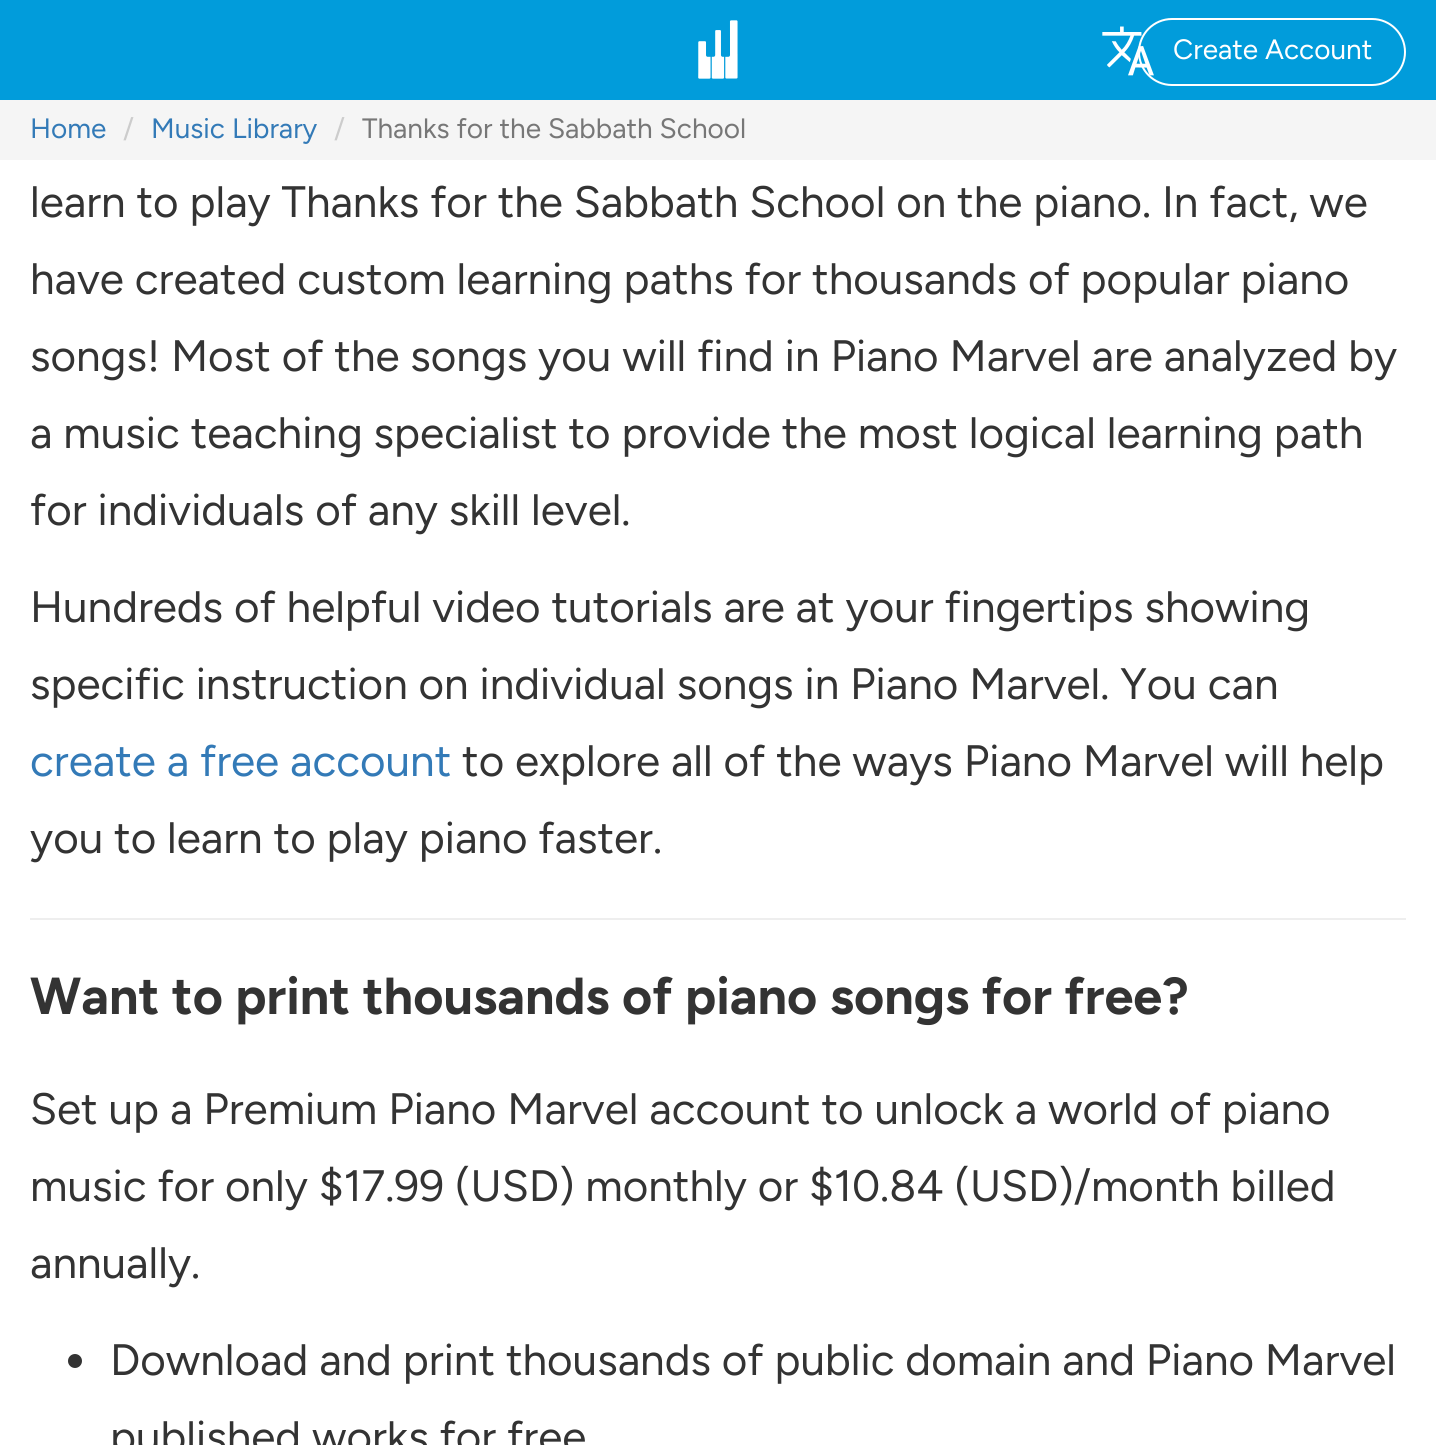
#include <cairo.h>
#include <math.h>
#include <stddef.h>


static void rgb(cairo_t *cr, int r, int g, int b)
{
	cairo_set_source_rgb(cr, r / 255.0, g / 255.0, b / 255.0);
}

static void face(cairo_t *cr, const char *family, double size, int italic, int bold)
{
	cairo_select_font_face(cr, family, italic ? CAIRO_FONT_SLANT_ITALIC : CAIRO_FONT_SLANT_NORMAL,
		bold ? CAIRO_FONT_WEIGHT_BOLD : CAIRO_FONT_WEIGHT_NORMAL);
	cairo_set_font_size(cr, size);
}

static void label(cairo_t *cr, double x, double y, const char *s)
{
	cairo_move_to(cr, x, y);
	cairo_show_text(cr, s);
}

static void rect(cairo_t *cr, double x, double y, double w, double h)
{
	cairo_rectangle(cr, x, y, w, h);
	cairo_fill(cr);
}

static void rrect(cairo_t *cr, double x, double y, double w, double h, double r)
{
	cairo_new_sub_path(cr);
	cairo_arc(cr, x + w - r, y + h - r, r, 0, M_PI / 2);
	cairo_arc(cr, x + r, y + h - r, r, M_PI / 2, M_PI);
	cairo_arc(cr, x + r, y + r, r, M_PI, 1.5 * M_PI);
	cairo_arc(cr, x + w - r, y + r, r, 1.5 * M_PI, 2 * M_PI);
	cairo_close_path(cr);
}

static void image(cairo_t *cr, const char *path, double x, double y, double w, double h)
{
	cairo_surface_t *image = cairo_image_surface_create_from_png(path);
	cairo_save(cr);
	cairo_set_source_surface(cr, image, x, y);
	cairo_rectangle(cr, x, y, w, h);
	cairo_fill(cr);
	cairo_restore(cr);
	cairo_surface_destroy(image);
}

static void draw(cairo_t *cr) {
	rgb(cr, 255, 255, 255);
	cairo_paint(cr);
	rgb(cr, 1, 156, 219);
	rect(cr, 0, 0, 1436, 100);
	image(cr, "image0.png", 698, 20, 40, 59);
	rrect(cr, 1139, 19, 266, 66, 33);
	rgb(cr, 255, 255, 255);
	cairo_stroke(cr);
	image(cr, "image1.png", 1102, 26, 52, 50);
	face(cr, "Figtree", 28, 0, 0);
	label(cr, 1173, 59, "Create Account");
	rgb(cr, 245, 245, 245);
	rect(cr, 0, 100, 1436, 60);
	rgb(cr, 51, 122, 183);
	label(cr, 30, 138, "Home");
	rgb(cr, 204, 204, 204);
	label(cr, 123, 138, "/");
	rgb(cr, 51, 122, 183);
	label(cr, 151, 138, "Music Library");
	rgb(cr, 204, 204, 204);
	label(cr, 334, 138, "/");
	rgb(cr, 119, 119, 119);
	label(cr, 362, 138, "Thanks for the Sabbath School");
	face(cr, "Figtree", 44, 0, 0);
	rgb(cr, 51, 51, 51);
	label(cr, 30, 217, "learn to play Thanks for the Sabbath School on the piano. In fact, we");
	label(cr, 30, 294, "have created custom learning paths for thousands of popular piano");
	label(cr, 30, 371, "songs! Most of the songs you will find in Piano Marvel are analyzed by");
	label(cr, 30, 448, "a music teaching specialist to provide the most logical learning path");
	label(cr, 30, 525, "for individuals of any skill level.");
	label(cr, 30, 622, "Hundreds of helpful video tutorials are at your fingertips showing");
	label(cr, 30, 699, "specific instruction on individual songs in Piano Marvel. You can");
	rgb(cr, 51, 122, 183);
	label(cr, 30, 776, "create a free account");
	rgb(cr, 51, 51, 51);
	label(cr, 462, 776, "to explore all of the ways Piano Marvel will help");
	label(cr, 30, 853, "you to learn to play piano faster.");
	rgb(cr, 238, 238, 238);
	rect(cr, 30, 918, 1376, 2);
	face(cr, "Figtree", 52, 0, 1);
	rgb(cr, 51, 51, 51);
	label(cr, 30, 1014, "Want to print thousands of piano songs for free?");
	face(cr, "Figtree", 44, 0, 0);
	label(cr, 30, 1124, "Set up a Premium Piano Marvel account to unlock a world of piano");
	label(cr, 30, 1201, "music for only $17.99 (USD) monthly or $10.84 (USD)/month billed");
	label(cr, 30, 1278, "annually.");
	cairo_new_path(cr);
	cairo_arc(cr, 75, 1361, 7, 0, 2 * M_PI);
	cairo_fill(cr);
	label(cr, 110, 1375, "Download and print thousands of public domain and Piano Marvel");
	label(cr, 110, 1452, "published works for free");
}

int main(void) {
	cairo_surface_t *surface = cairo_image_surface_create(CAIRO_FORMAT_RGB24, 1436, 1445);
	cairo_t *cr = cairo_create(surface);
	cairo_font_options_t *options = cairo_font_options_create();
	cairo_font_options_set_hint_metrics(options, CAIRO_HINT_METRICS_OFF);
	cairo_font_options_set_hint_style(options, CAIRO_HINT_STYLE_NONE);
	cairo_set_font_options(cr, options);
	cairo_set_miter_limit(cr, 4);
	draw(cr);
	cairo_surface_write_to_png(surface, "render.png");
	cairo_font_options_destroy(options);
	cairo_destroy(cr);
	cairo_surface_destroy(surface);
	return 0;
}
